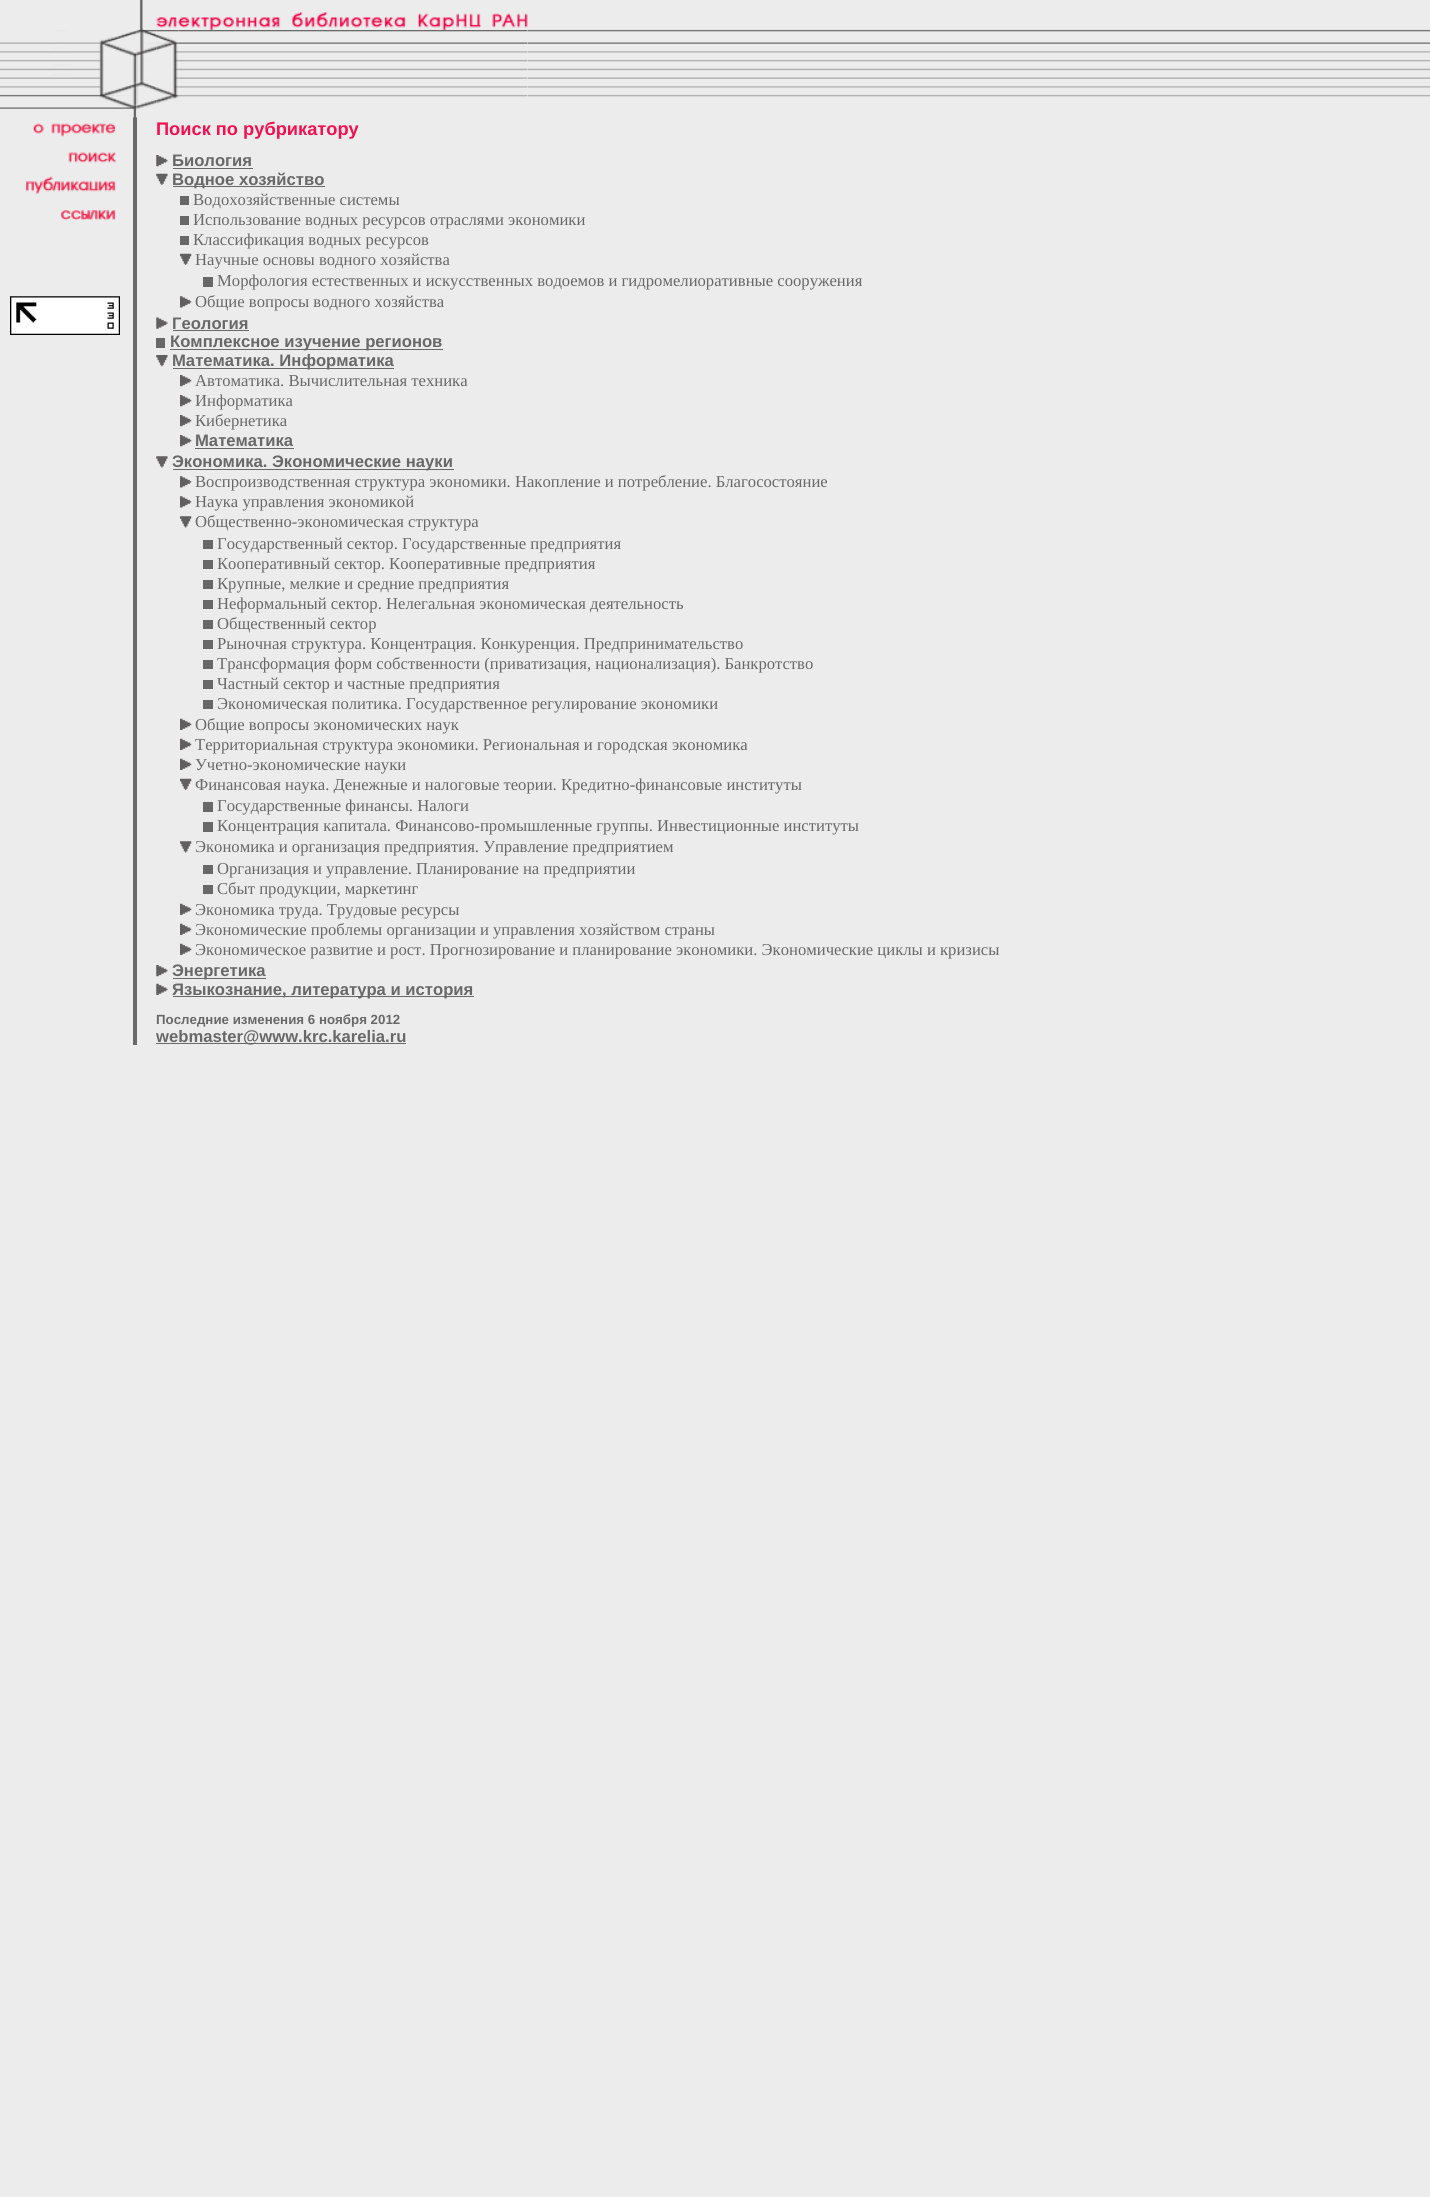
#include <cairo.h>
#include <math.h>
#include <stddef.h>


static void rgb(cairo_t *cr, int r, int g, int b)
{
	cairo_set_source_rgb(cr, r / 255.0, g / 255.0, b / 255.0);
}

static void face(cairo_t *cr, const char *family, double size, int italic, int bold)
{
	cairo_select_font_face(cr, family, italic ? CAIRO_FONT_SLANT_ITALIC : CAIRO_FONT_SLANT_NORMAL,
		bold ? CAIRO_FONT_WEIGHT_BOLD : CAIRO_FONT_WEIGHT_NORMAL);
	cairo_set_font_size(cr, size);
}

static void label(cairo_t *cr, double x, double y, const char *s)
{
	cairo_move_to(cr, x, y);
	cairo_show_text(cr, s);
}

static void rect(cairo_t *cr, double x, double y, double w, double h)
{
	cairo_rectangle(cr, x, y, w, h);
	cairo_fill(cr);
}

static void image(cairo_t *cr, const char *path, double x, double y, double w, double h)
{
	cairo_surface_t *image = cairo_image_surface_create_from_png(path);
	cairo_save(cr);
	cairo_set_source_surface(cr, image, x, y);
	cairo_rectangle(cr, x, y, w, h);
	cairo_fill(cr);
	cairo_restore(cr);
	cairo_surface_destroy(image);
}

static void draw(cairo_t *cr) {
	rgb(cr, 236, 236, 236);
	cairo_paint(cr);
	image(cr, "image0.png", 528, 29, 902, 68);
	image(cr, "image1.png", 139, 0, 5, 30);
	image(cr, "image2.png", 156, 12, 372, 18);
	rgb(cr, 106, 104, 104);
	rect(cr, 133, 117, 4, 928);
	image(cr, "image3.png", 0, 30, 137, 88);
	image(cr, "image4.png", 136, 30, 21, 88);
	image(cr, "image6.png", 178, 30, 350, 67);
	image(cr, "image5.png", 156, 30, 23, 74);
	image(cr, "image7.png", 33, 123, 83, 14);
	image(cr, "image8.png", 68, 152, 49, 11);
	image(cr, "image9.png", 26, 176, 90, 18);
	image(cr, "image10.png", 61, 210, 55, 10);
	image(cr, "image11.png", 10, 296, 110, 39);
	face(cr, "Liberation Sans", 18.25, 0, 1);
	rgb(cr, 246, 15, 80);
	label(cr, 156, 135, "Поиск по рубрикатору");
	image(cr, "image12.png", 156, 155, 12, 12);
	face(cr, "Liberation Sans", 16.65, 0, 1);
	rgb(cr, 105, 104, 104);
	label(cr, 172, 166, "Биология");
	rect(cr, 173, 168, 80, 1);
	image(cr, "image13.png", 156, 173, 12, 12);
	rect(cr, 173, 186, 152, 1);
	label(cr, 172, 185, "Водное хозяйство");
	rect(cr, 180, 196, 9, 9);
	face(cr, "Liberation Serif", 16.65, 0, 0);
	label(cr, 193, 205, "Водохозяйственные системы");
	rect(cr, 180, 216, 9, 9);
	label(cr, 193, 225, "Использование водных ресурсов отраслями экономики");
	rect(cr, 180, 236, 9, 9);
	label(cr, 193, 245, "Классификация водных ресурсов");
	image(cr, "image14.png", 180, 253, 12, 12);
	label(cr, 195, 265, "Научные основы водного хозяйства");
	rect(cr, 203, 277, 10, 10);
	label(cr, 217, 286, "Морфология естественных и искусственных водоемов и гидромелиоративные сооружения");
	image(cr, "image15.png", 180, 296, 12, 12);
	label(cr, 195, 307, "Общие вопросы водного хозяйства");
	image(cr, "image16.png", 156, 317, 12, 12);
	face(cr, "Liberation Sans", 16.65, 0, 1);
	label(cr, 172, 329, "Геология");
	rect(cr, 173, 330, 76, 1);
	rect(cr, 156, 338, 9, 10);
	rect(cr, 170, 349, 273, 1);
	label(cr, 170, 347, "Комплексное изучение регионов");
	image(cr, "image17.png", 156, 355, 12, 12);
	rect(cr, 173, 368, 221, 1);
	label(cr, 172, 366, "Математика. Информатика");
	image(cr, "image18.png", 180, 375, 12, 12);
	face(cr, "Liberation Serif", 16.65, 0, 0);
	label(cr, 195, 386, "Автоматика. Вычислительная техника");
	image(cr, "image18.png", 180, 395, 12, 12);
	label(cr, 195, 406, "Информатика");
	image(cr, "image18.png", 180, 415, 12, 12);
	label(cr, 195, 426, "Кибернетика");
	image(cr, "image18.png", 180, 435, 12, 12);
	face(cr, "Liberation Sans", 16.65, 0, 1);
	label(cr, 195, 446, "Математика");
	rect(cr, 195, 448, 99, 1);
	image(cr, "image19.png", 156, 456, 12, 12);
	rect(cr, 173, 469, 281, 1);
	label(cr, 172, 467, "Экономика. Экономические науки");
	image(cr, "image15.png", 180, 476, 12, 12);
	face(cr, "Liberation Serif", 16.65, 0, 0);
	label(cr, 195, 487, "Воспроизводственная структура экономики. Накопление и потребление. Благосостояние");
	image(cr, "image15.png", 180, 496, 12, 12);
	label(cr, 195, 507, "Наука управления экономикой");
	image(cr, "image20.png", 180, 516, 12, 12);
	label(cr, 195, 527, "Общественно-экономическая структура");
	rect(cr, 203, 540, 10, 9);
	label(cr, 217, 549, "Государственный сектор. Государственные предприятия");
	rect(cr, 203, 560, 10, 9);
	label(cr, 217, 569, "Кооперативный сектор. Кооперативные предприятия");
	rect(cr, 203, 580, 10, 9);
	label(cr, 217, 589, "Крупные, мелкие и средние предприятия");
	rect(cr, 203, 600, 10, 9);
	label(cr, 217, 609, "Неформальный сектор. Нелегальная экономическая деятельность");
	rect(cr, 203, 620, 10, 9);
	label(cr, 217, 629, "Общественный сектор");
	rect(cr, 203, 640, 10, 9);
	label(cr, 217, 649, "Рыночная структура. Концентрация. Конкуренция. Предпринимательство");
	rect(cr, 203, 660, 10, 9);
	label(cr, 217, 669, "Трансформация форм собственности (приватизация, национализация). Банкротство");
	rect(cr, 203, 680, 10, 9);
	label(cr, 217, 689, "Частный сектор и частные предприятия");
	rect(cr, 203, 700, 10, 9);
	label(cr, 217, 709, "Экономическая политика. Государственное регулирование экономики");
	image(cr, "image21.png", 180, 718, 12, 12);
	label(cr, 195, 730, "Общие вопросы экономических наук");
	image(cr, "image21.png", 180, 738, 12, 12);
	label(cr, 195, 750, "Территориальная структура экономики. Региональная и городская экономика");
	image(cr, "image21.png", 180, 758, 12, 12);
	label(cr, 195, 770, "Учетно-экономические науки");
	image(cr, "image14.png", 180, 778, 12, 12);
	label(cr, 195, 790, "Финансовая наука. Денежные и налоговые теории. Кредитно-финансовые институты");
	rect(cr, 203, 802, 10, 10);
	label(cr, 217, 811, "Государственные финансы. Налоги");
	rect(cr, 203, 822, 10, 10);
	label(cr, 217, 831, "Концентрация капитала. Финансово-промышленные группы. Инвестиционные институты");
	image(cr, "image20.png", 180, 841, 12, 12);
	label(cr, 195, 852, "Экономика и организация предприятия. Управление предприятием");
	rect(cr, 203, 865, 10, 9);
	label(cr, 217, 874, "Организация и управление. Планирование на предприятии");
	rect(cr, 203, 885, 10, 9);
	label(cr, 217, 894, "Сбыт продукции, маркетинг");
	image(cr, "image21.png", 180, 903, 12, 12);
	label(cr, 195, 915, "Экономика труда. Трудовые ресурсы");
	image(cr, "image21.png", 180, 923, 12, 12);
	label(cr, 195, 935, "Экономические проблемы организации и управления хозяйством страны");
	image(cr, "image21.png", 180, 943, 12, 12);
	label(cr, 195, 955, "Экономическое развитие и рост. Прогнозирование и планирование экономики. Экономические циклы и кризисы");
	image(cr, "image12.png", 156, 965, 12, 12);
	rect(cr, 173, 978, 93, 1);
	face(cr, "Liberation Sans", 16.65, 0, 1);
	label(cr, 172, 976, "Энергетика");
	image(cr, "image22.png", 156, 983, 12, 12);
	rect(cr, 173, 996, 301, 1);
	label(cr, 172, 995, "Языкознание, литература и история");
	face(cr, "Liberation Sans", 13.3, 0, 1);
	label(cr, 156, 1024, "Последние изменения 6 ноября 2012");
	rect(cr, 156, 1043, 250, 1);
	face(cr, "Liberation Sans", 16.65, 0, 1);
	label(cr, 156, 1042, "webmaster@www.krc.karelia.ru");
}

int main(void) {
	cairo_surface_t *surface = cairo_image_surface_create(CAIRO_FORMAT_RGB24, 1430, 2197);
	cairo_t *cr = cairo_create(surface);
	cairo_font_options_t *options = cairo_font_options_create();
	cairo_font_options_set_hint_metrics(options, CAIRO_HINT_METRICS_OFF);
	cairo_font_options_set_hint_style(options, CAIRO_HINT_STYLE_NONE);
	cairo_set_font_options(cr, options);
	cairo_set_miter_limit(cr, 4);
	draw(cr);
	cairo_surface_write_to_png(surface, "render.png");
	cairo_font_options_destroy(options);
	cairo_destroy(cr);
	cairo_surface_destroy(surface);
	return 0;
}
